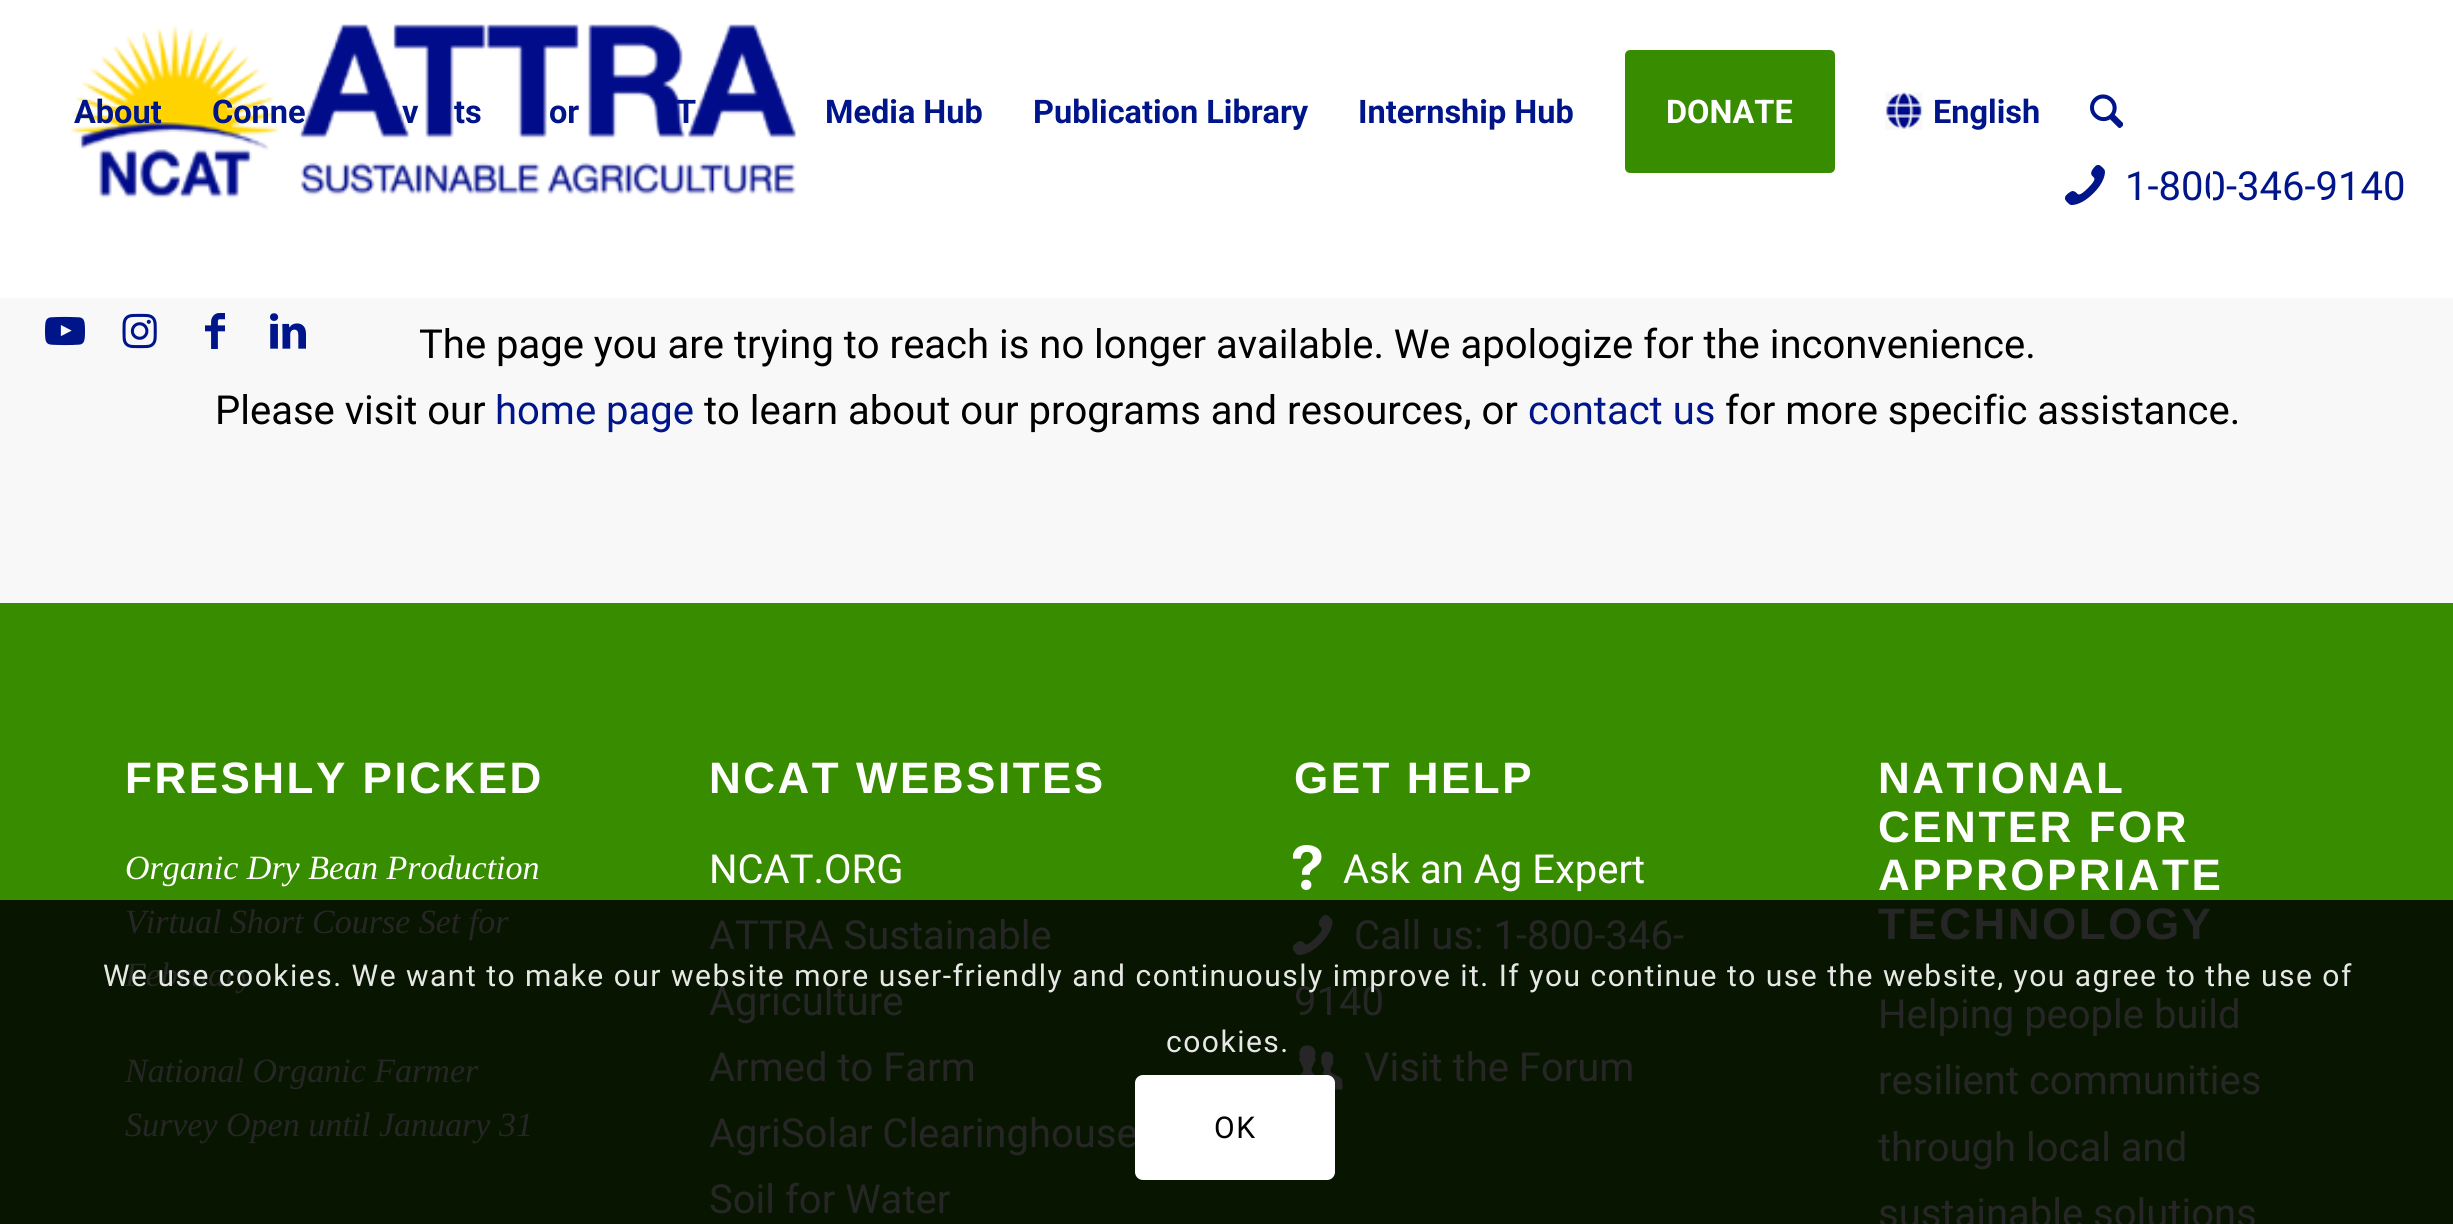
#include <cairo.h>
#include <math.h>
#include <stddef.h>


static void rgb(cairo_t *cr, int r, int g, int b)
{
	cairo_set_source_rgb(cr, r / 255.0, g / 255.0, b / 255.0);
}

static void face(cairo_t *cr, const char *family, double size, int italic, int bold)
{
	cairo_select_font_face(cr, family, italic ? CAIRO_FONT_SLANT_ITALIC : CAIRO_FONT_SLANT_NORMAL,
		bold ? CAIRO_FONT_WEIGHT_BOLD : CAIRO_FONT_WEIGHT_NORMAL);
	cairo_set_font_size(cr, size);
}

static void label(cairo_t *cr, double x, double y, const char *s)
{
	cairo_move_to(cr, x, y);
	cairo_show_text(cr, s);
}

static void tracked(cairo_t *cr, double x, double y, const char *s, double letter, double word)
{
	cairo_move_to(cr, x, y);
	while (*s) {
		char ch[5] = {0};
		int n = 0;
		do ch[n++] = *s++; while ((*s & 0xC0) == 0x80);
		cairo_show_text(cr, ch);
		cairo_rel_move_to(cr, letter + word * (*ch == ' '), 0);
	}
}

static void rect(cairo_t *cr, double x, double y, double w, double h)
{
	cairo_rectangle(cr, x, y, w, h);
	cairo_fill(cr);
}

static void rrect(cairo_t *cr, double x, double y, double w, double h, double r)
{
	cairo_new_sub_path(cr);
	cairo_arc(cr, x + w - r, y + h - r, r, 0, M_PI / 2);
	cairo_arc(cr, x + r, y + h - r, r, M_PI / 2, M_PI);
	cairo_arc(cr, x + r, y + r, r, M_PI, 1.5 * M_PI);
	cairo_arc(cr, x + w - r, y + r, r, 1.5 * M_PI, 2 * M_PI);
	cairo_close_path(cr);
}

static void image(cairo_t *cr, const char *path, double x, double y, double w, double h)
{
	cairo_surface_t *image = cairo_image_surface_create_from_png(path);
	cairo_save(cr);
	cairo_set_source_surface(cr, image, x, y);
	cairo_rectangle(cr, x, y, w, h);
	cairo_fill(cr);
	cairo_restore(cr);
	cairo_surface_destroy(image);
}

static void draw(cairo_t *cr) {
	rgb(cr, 248, 248, 248);
	cairo_paint(cr);
	rgb(cr, 255, 255, 255);
	rect(cr, 0, 0, 2453, 298);
	image(cr, "image0.png", 70, 24, 726, 174);
	face(cr, "Roboto", 40, 0, 0);
	rgb(cr, 0, 21, 137);
	label(cr, 2125, 200, "1-800-346-9140");
	rgb(cr, 255, 255, 255);
	rect(cr, 2210, 171, 3, 30);
	face(cr, "Roboto", 32.5, 0, 1);
	rgb(cr, 0, 21, 137);
	label(cr, 74, 123, "About");
	label(cr, 212, 123, "Conne");
	label(cr, 402, 123, "v");
	label(cr, 454, 123, "ts");
	label(cr, 549, 123, "or");
	label(cr, 676, 123, "T");
	label(cr, 825, 123, "Media Hub");
	label(cr, 1033, 123, "Publication Library");
	label(cr, 1358, 123, "Internship Hub");
	rgb(cr, 56, 140, 0);
	rrect(cr, 1627.5, 52.5, 205, 118, 2.5);
	cairo_fill_preserve(cr);
	cairo_set_line_width(cr, 5);
	cairo_stroke(cr);
	rgb(cr, 255, 255, 255);
	label(cr, 1666, 123, "DONATE");
	image(cr, "image1.png", 1885, 92, 38, 38);
	rgb(cr, 0, 21, 137);
	label(cr, 1933, 123, "English");
	image(cr, "image2.png", 2090, 94, 33, 35);
	image(cr, "image3.png", 45, 316, 40, 30);
	image(cr, "image4.png", 122, 313, 35, 36);
	image(cr, "image5.png", 205, 313, 20, 36);
	image(cr, "image6.png", 270, 313, 36, 36);
	image(cr, "image7.png", 2065, 165, 40, 40);
	face(cr, "Roboto", 40, 0, 0);
	rgb(cr, 0, 0, 0);
	label(cr, 419, 358, "The page you are trying to reach is no longer available. We apologize for the inconvenience.");
	label(cr, 215, 424, "Please visit our");
	rgb(cr, 0, 21, 137);
	label(cr, 495, 424, "home page");
	rgb(cr, 0, 0, 0);
	label(cr, 704, 424, "to learn about our programs and resources, or");
	rgb(cr, 0, 21, 137);
	label(cr, 1528, 424, "contact us");
	rgb(cr, 0, 0, 0);
	label(cr, 1725, 424, "for more specific assistance.");
	rgb(cr, 56, 140, 0);
	rect(cr, 0, 603, 2453, 297);
	rgb(cr, 8, 21, 0);
	rect(cr, 0, 900, 2453, 324);
	face(cr, "Liberation Sans", 44, 0, 1);
	rgb(cr, 255, 255, 255);
	tracked(cr, 125, 793, "FRESHLY PICKED", 2.5, 0);
	face(cr, "Liberation Serif", 34, 1, 0);
	label(cr, 125, 879, "Organic Dry Bean Production");
	rgb(cr, 38, 38, 38);
	label(cr, 125, 933, "Virtual Short Course Set for");
	label(cr, 125, 986, "February");
	label(cr, 125, 1082, "National Organic Farmer");
	label(cr, 125, 1136, "Survey Open until January 31");
	face(cr, "Liberation Sans", 44, 0, 1);
	rgb(cr, 255, 255, 255);
	tracked(cr, 709, 793, "NCAT WEBSITES", 2.5, 0);
	face(cr, "Roboto", 40, 0, 0);
	label(cr, 709, 883, "NCAT.ORG");
	rgb(cr, 38, 38, 38);
	label(cr, 709, 949, "ATTRA Sustainable");
	label(cr, 709, 1015, "Agriculture");
	label(cr, 709, 1081, "Armed to Farm");
	label(cr, 709, 1147, "AgriSolar Clearinghouse");
	label(cr, 709, 1213, "Soil for Water");
	face(cr, "Liberation Sans", 44, 0, 1);
	rgb(cr, 255, 255, 255);
	tracked(cr, 1294, 793, "GET HELP", 2.5, 0);
	image(cr, "image8.png", 1293, 845, 29, 45);
	face(cr, "Roboto", 40, 0, 0);
	label(cr, 1343, 883, "Ask an Ag Expert");
	image(cr, "image9.png", 1293, 915, 40, 40);
	rgb(cr, 38, 38, 38);
	label(cr, 1354, 949, "Call us: 1-800-346-");
	label(cr, 1294, 1015, "9140");
	image(cr, "image10.png", 1299, 1045, 44, 45);
	label(cr, 1364, 1081, "Visit the Forum");
	face(cr, "Liberation Sans", 44, 0, 1);
	rgb(cr, 255, 255, 255);
	tracked(cr, 1878, 793, "NATIONAL", 2.5, 0);
	tracked(cr, 1878, 842, "CENTER FOR", 2.5, 0);
	tracked(cr, 1878, 890, "APPROPRIATE", 2.5, 0);
	rgb(cr, 38, 38, 38);
	tracked(cr, 1878, 939, "TECHNOLOGY", 2.5, 0);
	face(cr, "Roboto", 40, 0, 0);
	label(cr, 1878, 1028, "Helping people build");
	label(cr, 1878, 1094, "resilient communities");
	label(cr, 1878, 1161, "through local and");
	label(cr, 1878, 1227, "sustainable solutions");
	face(cr, "Roboto", 30, 0, 0);
	rgb(cr, 230, 232, 230);
	tracked(cr, 103, 986, "We use cookies. We want to make our website more user-friendly and continuously improve it. If you continue to use the website, you agree to the use of", 1.5, 0);
	tracked(cr, 1166, 1052, "cookies.", 1.5, 0);
	rgb(cr, 255, 255, 255);
	rrect(cr, 1135, 1075, 200, 105, 8);
	cairo_fill(cr);
	rgb(cr, 0, 0, 0);
	tracked(cr, 1214, 1138, "OK", 1.5, 0);
}

int main(void) {
	cairo_surface_t *surface = cairo_image_surface_create(CAIRO_FORMAT_RGB24, 2453, 1224);
	cairo_t *cr = cairo_create(surface);
	cairo_font_options_t *options = cairo_font_options_create();
	cairo_font_options_set_hint_metrics(options, CAIRO_HINT_METRICS_OFF);
	cairo_font_options_set_hint_style(options, CAIRO_HINT_STYLE_NONE);
	cairo_set_font_options(cr, options);
	cairo_set_miter_limit(cr, 4);
	draw(cr);
	cairo_surface_write_to_png(surface, "render.png");
	cairo_font_options_destroy(options);
	cairo_destroy(cr);
	cairo_surface_destroy(surface);
	return 0;
}
